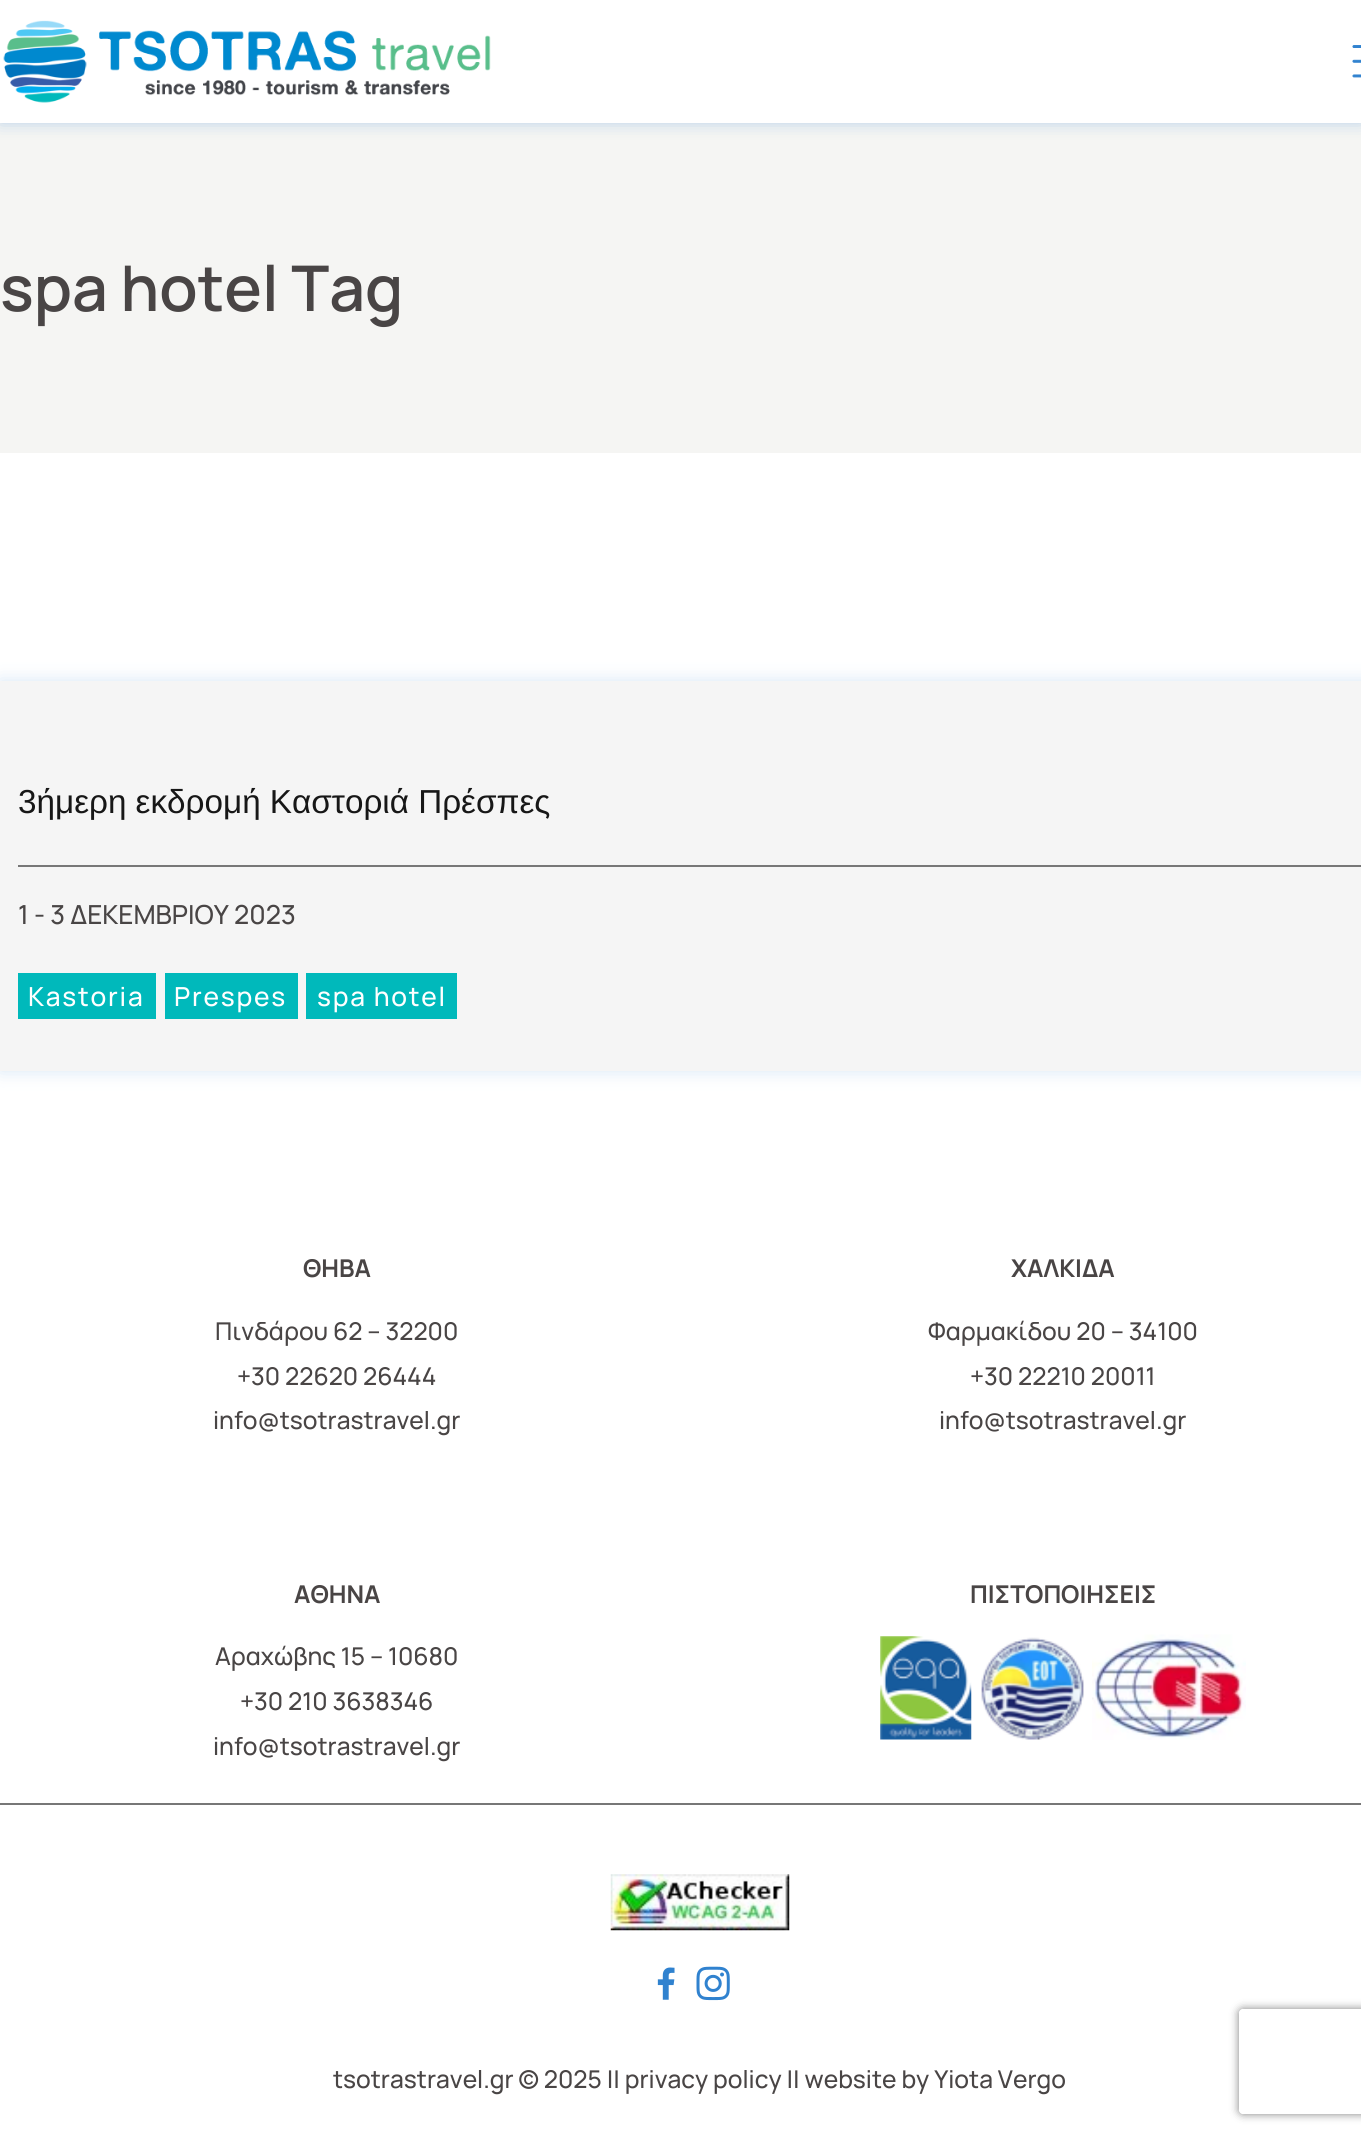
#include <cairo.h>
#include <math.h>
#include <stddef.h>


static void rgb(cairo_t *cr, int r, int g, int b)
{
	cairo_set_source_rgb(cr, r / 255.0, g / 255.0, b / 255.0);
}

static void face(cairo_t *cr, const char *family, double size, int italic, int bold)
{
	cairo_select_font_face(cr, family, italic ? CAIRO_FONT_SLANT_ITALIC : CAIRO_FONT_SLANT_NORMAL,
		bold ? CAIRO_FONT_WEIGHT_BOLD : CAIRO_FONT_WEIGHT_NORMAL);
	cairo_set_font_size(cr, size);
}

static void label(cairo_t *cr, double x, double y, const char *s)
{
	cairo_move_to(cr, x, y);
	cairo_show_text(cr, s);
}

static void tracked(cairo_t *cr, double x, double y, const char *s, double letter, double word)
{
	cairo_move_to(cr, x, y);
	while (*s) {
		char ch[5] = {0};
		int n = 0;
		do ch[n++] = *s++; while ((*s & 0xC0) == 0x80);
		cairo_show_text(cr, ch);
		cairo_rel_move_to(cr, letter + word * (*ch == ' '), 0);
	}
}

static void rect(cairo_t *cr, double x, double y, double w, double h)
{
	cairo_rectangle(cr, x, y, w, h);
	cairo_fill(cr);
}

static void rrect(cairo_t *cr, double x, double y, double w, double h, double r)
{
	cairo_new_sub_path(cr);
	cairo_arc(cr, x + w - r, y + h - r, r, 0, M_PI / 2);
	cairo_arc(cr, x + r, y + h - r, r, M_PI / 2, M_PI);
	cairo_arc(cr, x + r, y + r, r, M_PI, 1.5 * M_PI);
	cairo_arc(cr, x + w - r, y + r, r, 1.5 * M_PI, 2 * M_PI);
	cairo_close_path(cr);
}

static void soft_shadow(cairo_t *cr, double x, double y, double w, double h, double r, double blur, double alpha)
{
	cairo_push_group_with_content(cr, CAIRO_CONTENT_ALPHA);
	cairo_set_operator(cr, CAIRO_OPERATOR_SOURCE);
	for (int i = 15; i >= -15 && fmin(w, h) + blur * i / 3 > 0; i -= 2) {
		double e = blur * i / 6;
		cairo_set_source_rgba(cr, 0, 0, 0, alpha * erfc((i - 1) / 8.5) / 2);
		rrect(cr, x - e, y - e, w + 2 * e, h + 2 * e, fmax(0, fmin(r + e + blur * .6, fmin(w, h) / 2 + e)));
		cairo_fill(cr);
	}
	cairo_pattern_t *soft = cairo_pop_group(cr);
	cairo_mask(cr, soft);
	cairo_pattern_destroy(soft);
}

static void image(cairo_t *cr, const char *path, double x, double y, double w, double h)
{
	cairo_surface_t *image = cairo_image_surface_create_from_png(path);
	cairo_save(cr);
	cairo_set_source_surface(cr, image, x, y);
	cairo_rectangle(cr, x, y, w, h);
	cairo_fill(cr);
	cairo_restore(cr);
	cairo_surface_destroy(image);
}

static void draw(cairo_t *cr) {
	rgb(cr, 255, 255, 255);
	cairo_paint(cr);
	rgb(cr, 245, 245, 243);
	rect(cr, 0, 123, 1361, 330);
	rgb(cr, 48, 130, 207);
	soft_shadow(cr, 0, 0, 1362, 123, 0, 8, 0.3);
	rgb(cr, 255, 255, 255);
	rect(cr, 0, 0, 1361, 123);
	image(cr, "image0.png", 3, 20, 488, 83);
	image(cr, "image1.png", 1352, 45, 9, 33);
	face(cr, "Manrope SemiBold", 63, 0, 0);
	rgb(cr, 73, 69, 69);
	label(cr, 0, 311, "spa hotel Tag");
	rgb(cr, 48, 130, 207);
	soft_shadow(cr, 0, 681, 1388, 390, 0, 9, 0.2);
	rgb(cr, 245, 245, 245);
	rect(cr, 0, 681, 1361, 390);
	rgb(cr, 119, 119, 119);
	rect(cr, 18, 865, 1343, 2);
	face(cr, "Liberation Sans", 33.25, 0, 0);
	rgb(cr, 23, 23, 23);
	label(cr, 18, 813, "3ήμερη εκδρομή Καστοριά Πρέσπες");
	face(cr, "Manrope Medium", 26.25, 0, 0);
	rgb(cr, 73, 69, 69);
	label(cr, 18, 924, "1 - 3 ΔΕΚΕΜΒΡΙΟΥ 2023");
	rgb(cr, 0, 185, 187);
	rect(cr, 18, 973, 138, 46);
	rgb(cr, 255, 255, 255);
	tracked(cr, 28, 1006, "Kastoria", 1.75, 0);
	rgb(cr, 0, 185, 187);
	rect(cr, 165, 973, 133, 46);
	rgb(cr, 255, 255, 255);
	tracked(cr, 174, 1006, "Prespes", 1.75, 0);
	rgb(cr, 0, 185, 187);
	rect(cr, 306, 973, 151, 46);
	rgb(cr, 255, 255, 255);
	tracked(cr, 317, 1006, "spa hotel", 1.75, 0);
	rgb(cr, 119, 119, 119);
	rect(cr, 0, 1803, 1361, 2);
	face(cr, "Manrope", 24.5, 0, 1);
	rgb(cr, 73, 69, 69);
	label(cr, 303, 1277, "ΘΗΒΑ");
	face(cr, "Manrope Medium", 24.5, 0, 0);
	label(cr, 215, 1340, "Πινδάρου 62 – 32200");
	label(cr, 237, 1385, "+30 22620 26444");
	label(cr, 213, 1429, "info@tsotrastravel.gr");
	face(cr, "Manrope", 24.5, 0, 1);
	label(cr, 1011, 1277, "ΧΑΛΚΙΔΑ");
	face(cr, "Manrope Medium", 24.5, 0, 0);
	label(cr, 928, 1340, "Φαρμακίδου 20 – 34100");
	label(cr, 970, 1385, "+30 22210 20011");
	label(cr, 939, 1429, "info@tsotrastravel.gr");
	face(cr, "Manrope", 24.5, 0, 1);
	label(cr, 294, 1603, "ΑΘΗΝΑ");
	face(cr, "Manrope Medium", 24.5, 0, 0);
	label(cr, 215, 1665, "Αραχώβης 15 – 10680");
	label(cr, 240, 1710, "+30 210 3638346");
	label(cr, 213, 1755, "info@tsotrastravel.gr");
	face(cr, "Manrope", 24.5, 0, 1);
	label(cr, 970, 1603, "ΠΙΣΤΟΠΟΙΗΣΕΙΣ");
	image(cr, "image2.png", 880, 1636, 92, 104);
	image(cr, "image3.png", 981, 1637, 103, 103);
	image(cr, "image4.png", 1092, 1634, 154, 106);
	image(cr, "image5.png", 610, 1874, 180, 57);
	image(cr, "image6.png", 657, 1967, 18, 33);
	image(cr, "image7.png", 696, 1966, 34, 35);
	face(cr, "Manrope Medium", 24.5, 0, 0);
	label(cr, 333, 2088, "tsotrastravel.gr © 2025 || privacy policy || website by Yiota Vergo");
	cairo_save(cr);
	cairo_set_fill_rule(cr, CAIRO_FILL_RULE_EVEN_ODD);
	cairo_new_path(cr);
	cairo_move_to(cr, 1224, 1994);
	cairo_line_to(cr, 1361, 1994);
	cairo_line_to(cr, 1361, 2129);
	cairo_line_to(cr, 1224, 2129);
	cairo_close_path(cr);
	cairo_move_to(cr, 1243, 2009);
	cairo_line_to(cr, 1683, 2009);
	cairo_curve_to(cr, 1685, 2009, 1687, 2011, 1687, 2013);
	cairo_line_to(cr, 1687, 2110);
	cairo_curve_to(cr, 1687, 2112, 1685, 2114, 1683, 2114);
	cairo_line_to(cr, 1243, 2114);
	cairo_curve_to(cr, 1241, 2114, 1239, 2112, 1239, 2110);
	cairo_line_to(cr, 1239, 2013);
	cairo_curve_to(cr, 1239, 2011, 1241, 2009, 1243, 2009);
	cairo_close_path(cr);
	cairo_clip(cr);
	rgb(cr, 128, 128, 128);
	soft_shadow(cr, 1239, 2009, 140, 105, 4, 4.5, 1);
	cairo_restore(cr);
}

int main(void) {
	cairo_surface_t *surface = cairo_image_surface_create(CAIRO_FORMAT_RGB24, 1361, 2137);
	cairo_t *cr = cairo_create(surface);
	cairo_font_options_t *options = cairo_font_options_create();
	cairo_font_options_set_hint_metrics(options, CAIRO_HINT_METRICS_OFF);
	cairo_font_options_set_hint_style(options, CAIRO_HINT_STYLE_NONE);
	cairo_set_font_options(cr, options);
	cairo_set_miter_limit(cr, 4);
	draw(cr);
	cairo_surface_write_to_png(surface, "render.png");
	cairo_font_options_destroy(options);
	cairo_destroy(cr);
	cairo_surface_destroy(surface);
	return 0;
}
